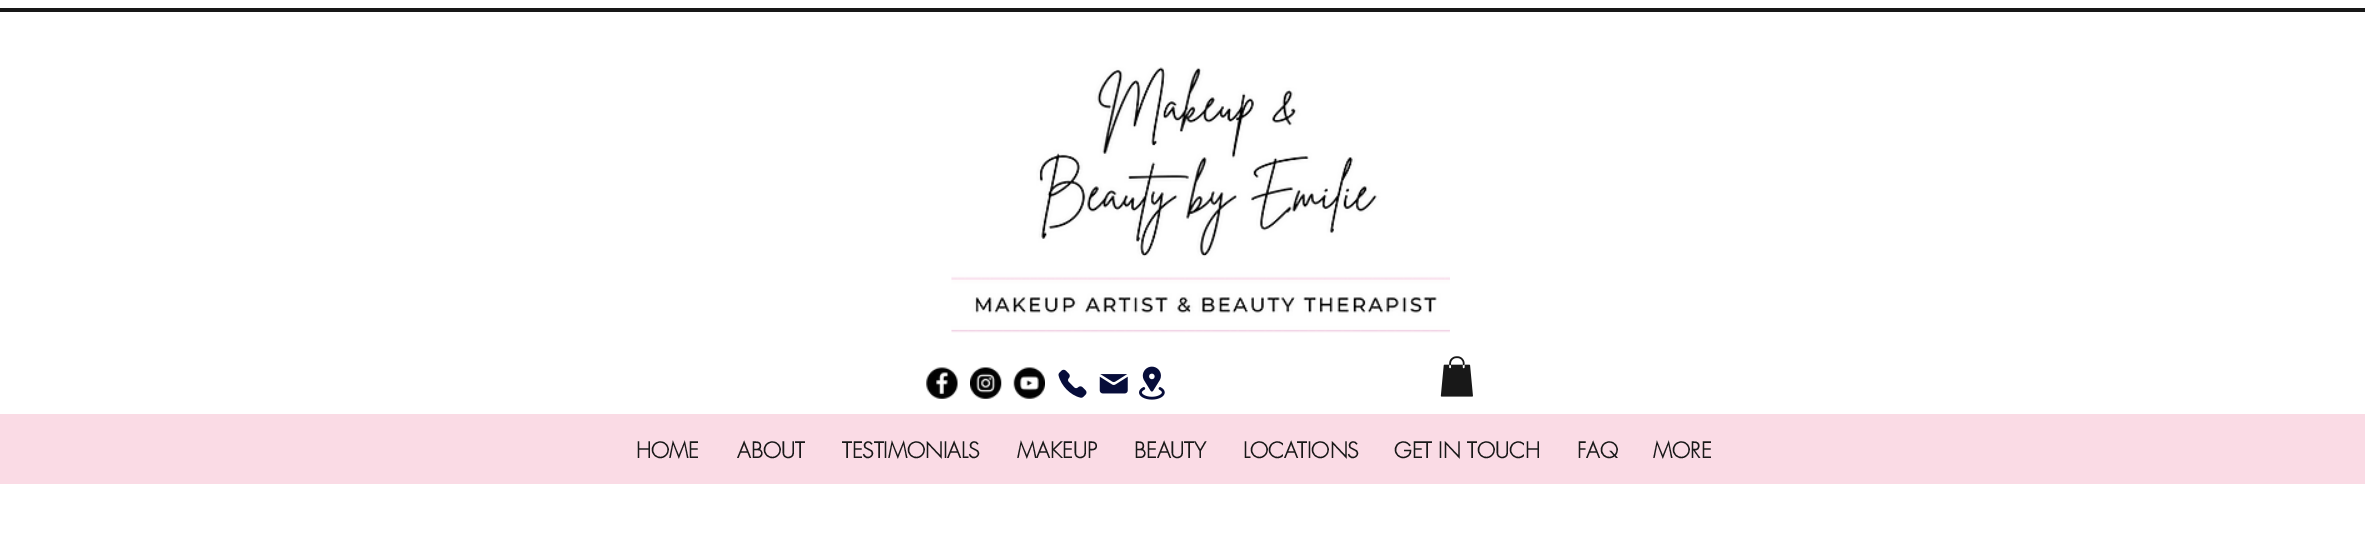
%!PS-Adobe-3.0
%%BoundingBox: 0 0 2365 551
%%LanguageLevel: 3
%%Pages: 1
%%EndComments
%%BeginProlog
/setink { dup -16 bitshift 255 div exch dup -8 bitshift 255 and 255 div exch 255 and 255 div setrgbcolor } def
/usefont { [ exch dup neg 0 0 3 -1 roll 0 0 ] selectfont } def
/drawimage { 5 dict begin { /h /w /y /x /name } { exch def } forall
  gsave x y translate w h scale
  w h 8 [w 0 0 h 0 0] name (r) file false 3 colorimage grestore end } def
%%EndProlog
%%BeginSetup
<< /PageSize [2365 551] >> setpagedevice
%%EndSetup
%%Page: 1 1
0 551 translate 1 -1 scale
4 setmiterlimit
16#FFFFFF setink
0 0 2365 551 rectfill
16#181818 setink
0 8 2365 4 rectfill
(img1.raw) 951 67 499 266 drawimage
(img2.raw) 926 367 32 32 drawimage
(img3.raw) 970 367 32 32 drawimage
(img4.raw) 1013 367 32 32 drawimage
(img5.raw) 1058 369 29 29 drawimage
(img6.raw) 1099 374 29 20 drawimage
(img7.raw) 1139 366 26 34 drawimage
(img8.raw) 1440 356 33 41 drawimage
16#FADBE5 setink
0 414 2365 70 rectfill
/futura-Bold 21.25 usefont
16#181818 setink
[
    [(HOME) 636 458]
    [(ABOUT) 737 458]
    [(TESTIMONIALS) 842 458]
    [(MAKEUP) 1017 458]
    [(BEAUTY) 1134 458]
    [(LOCATIONS) 1243 458]
    [(GET IN TOUCH) 1394 458]
    [(FAQ) 1577 458]
    [(MORE) 1653 458]
] { aload pop moveto show } forall
showpage
%%EOF
